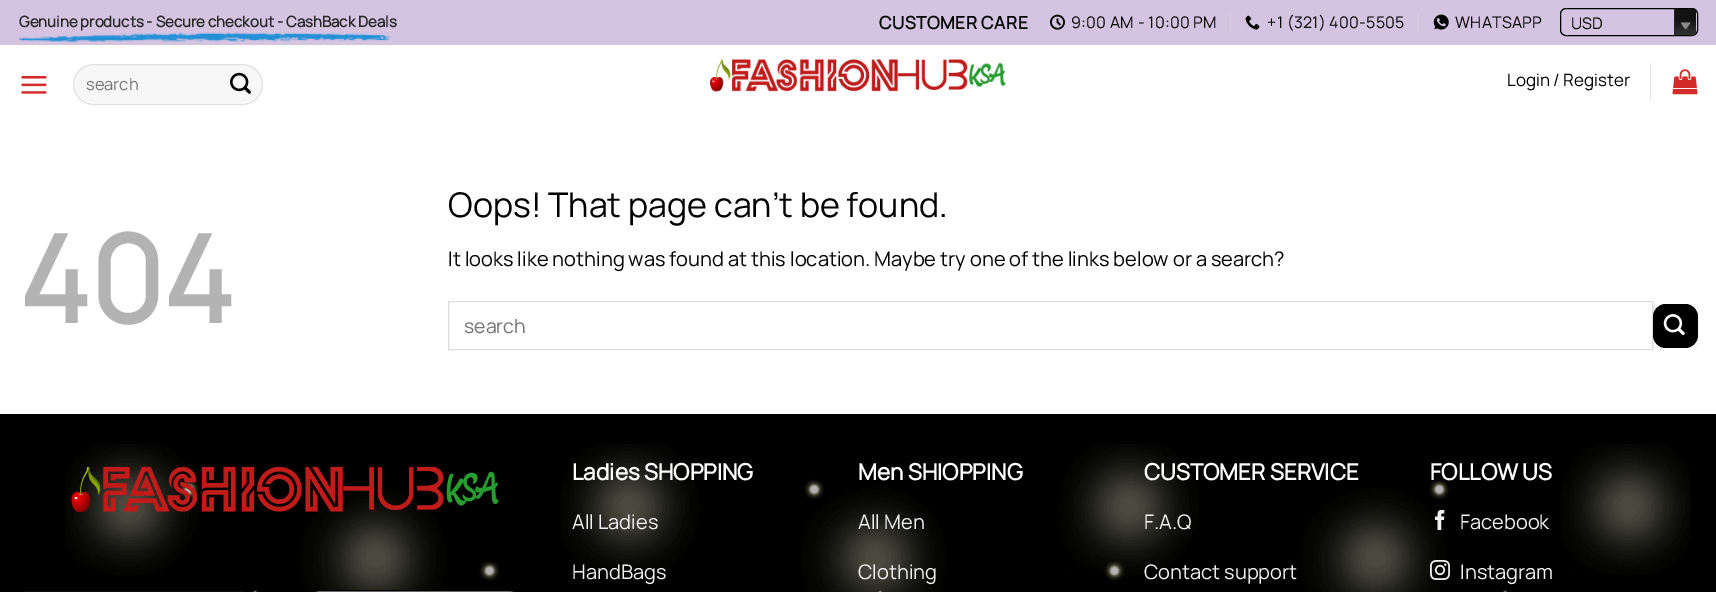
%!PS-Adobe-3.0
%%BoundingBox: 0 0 1716 592
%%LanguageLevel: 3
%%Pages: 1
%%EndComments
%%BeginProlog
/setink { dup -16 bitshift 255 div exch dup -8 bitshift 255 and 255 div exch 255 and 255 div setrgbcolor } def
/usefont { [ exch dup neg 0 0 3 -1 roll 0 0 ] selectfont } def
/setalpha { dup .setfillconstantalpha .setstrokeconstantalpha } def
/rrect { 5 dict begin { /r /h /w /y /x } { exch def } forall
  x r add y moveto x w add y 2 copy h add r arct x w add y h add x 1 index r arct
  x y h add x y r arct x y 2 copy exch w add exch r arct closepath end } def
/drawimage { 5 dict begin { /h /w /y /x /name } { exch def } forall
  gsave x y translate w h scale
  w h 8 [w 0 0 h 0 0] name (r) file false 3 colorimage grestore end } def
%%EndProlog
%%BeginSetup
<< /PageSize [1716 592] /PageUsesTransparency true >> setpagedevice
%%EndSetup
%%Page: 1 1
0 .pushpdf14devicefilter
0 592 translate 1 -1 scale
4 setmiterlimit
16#FFFFFF setink
0 0 1716 592 rectfill
16#D5C3E2 setink
0 0 1716 45 rectfill
/Manrope-Bold 15 usefont
16#282828 setink
19 27 moveto (Genuine products - Secure checkout - CashBack Deals) show
(img1.raw) 18 32 373 11 drawimage
/Manrope-Bold 17.5 usefont
16#000000 setink
879 29 moveto 0.5 0 (CUSTOMER CARE) ashow
(img2.raw) 1050 14 15 16 drawimage
/Manrope-ExtraLight 16 usefont
1071 28 moveto 0.3 0 (9:00 AM - 10:00 PM) ashow
16#DDCFE8 setink
1230 14 1 19 rectfill
(img3.raw) 1245 15 15 15 drawimage
16#000000 setink
1267 28 moveto 0.3 0 (+1 \(321\) 400-5505) ashow
16#DDCFE8 setink
1418 14 1 19 rectfill
(img4.raw) 1433 14 16 16 drawimage
16#000000 setink
1455 28 moveto 0.3 0 (WHATSAPP) ashow
1560.5 8.5 137 27 5.5 rrect stroke
1571 29 moveto (USD) show
gsave 1674 9 moveto 1691 9 lineto 1694 9 1696 11 1696 14 curveto 1696 30 lineto 1696 33 1694 35 1691 35 curveto 1674 35 lineto closepath clip newpath
<< /ShadingType 2 /ColorSpace /DeviceRGB /Coords [1675 35 1675 9] /Extend [true true] /Function << /FunctionType 3 /Domain [0 1] /Functions [<< /FunctionType 2 /Domain [0 1] /C0 [0.2 0.2 0.2] /C1 [0.071 0.071 0.071] /N 1 >> << /FunctionType 2 /Domain [0 1] /C0 [0.071 0.071 0.071] /C1 [0.071 0.071 0.071] /N 1 >>] /Bounds [0.6] /Encode [0 1 0 1] >> >> shfill grestore
16#252525 setink
1674 9 1 26 rectfill
(img5.raw) 1681 22 10 9 drawimage
(img6.raw) 21 76 26 18 drawimage
16#F7F7F7 setink
73 64 190 41 20.5 rrect fill
0.09 setalpha
16#000000 setink
73.5 64.5 189 40 20 rrect stroke
/Manrope-ExtraLight 16.5 usefont
1 setalpha
16#757575 setink
86 90 moveto (search) show
(img7.raw) 230 72 21 22 drawimage
(img8.raw) 710 59 296 33 drawimage
/Manrope-ExtraLight 17 usefont
16#000000 setink
1507 86 moveto (Login / Register) show
16#E6E6E6 setink
1650 63 1 37 rectfill
(img9.raw) 1672 69 26 26 drawimage
/Manrope-Bold 120 usefont
16#B3B3B3 setink
19 323 moveto (404) show
/Manrope-ExtraLight 34 usefont
16#000000 setink
448 217 moveto (Oops! That page can’t be found.) show
/Manrope-ExtraLight 20 usefont
448 266 moveto (It looks like nothing was found at this location. Maybe try one of the links below or a search?) show
16#DDDDDD setink
448.5 301.5 1204 48 rectstroke
/Manrope-ExtraLight 19.5 usefont
16#757575 setink
464 333 moveto (search) show
16#000000 setink
1653 304 45 44 13 rrect fill
0.05 setalpha
1653.5 304.5 44 43 rectstroke
1 setalpha
(img10.raw) 1663 314 22 21 drawimage
0 414 1716 178 rectfill
(img11.raw) 66 444 1625 148 drawimage
(img12.raw) 71 466 428 47 drawimage
(img13.raw) 23 591 221 1 drawimage
(img14.raw) 315 590 199 2 drawimage
/Manrope-Bold 22.5 usefont
16#FFFFFF setink
572 480 moveto (Ladies SHOPPING) show
/Manrope-ExtraLight 20 usefont
16#F1F1F1 setink
572 529 moveto (All Ladies) show
572 579 moveto (HandBags) show
/Manrope-Bold 22.5 usefont
16#FFFFFF setink
858 480 moveto (Men SHIOPPING) show
/Manrope-ExtraLight 20 usefont
16#F1F1F1 setink
858 529 moveto (All Men) show
858 579 moveto (Clothing) show
/Manrope-Bold 22.5 usefont
16#FFFFFF setink
1144 480 moveto (CUSTOMER SERVICE) show
/Manrope-ExtraLight 20 usefont
16#F1F1F1 setink
1144 529 moveto (F.A.Q) show
1144 579 moveto (Contact support) show
/Manrope-Bold 22.5 usefont
16#FFFFFF setink
1430 480 moveto (FOLLOW US) show
(img15.raw) 1435 510 10 20 drawimage
/Manrope-ExtraLight 20 usefont
16#F1F1F1 setink
1460 529 moveto (Facebook) show
(img16.raw) 1430 560 20 20 drawimage
1460 579 moveto (Instagram) show
.poppdf14devicefilter showpage
%%EOF
